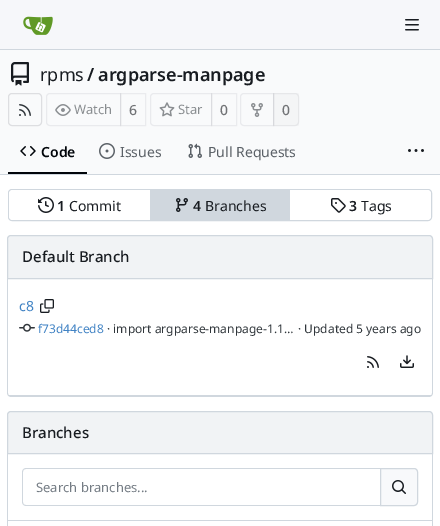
%!PS-Adobe-3.0
%%BoundingBox: 0 0 440 526
%%LanguageLevel: 3
%%Pages: 1
%%EndComments
%%BeginProlog
/setink { dup -16 bitshift 255 div exch dup -8 bitshift 255 and 255 div exch 255 and 255 div setrgbcolor } def
/usefont { [ exch dup neg 0 0 3 -1 roll 0 0 ] selectfont } def
/setalpha { dup .setfillconstantalpha .setstrokeconstantalpha } def
/rrect { 5 dict begin { /r /h /w /y /x } { exch def } forall
  x r add y moveto x w add y 2 copy h add r arct x w add y h add x 1 index r arct
  x y h add x y r arct x y 2 copy exch w add exch r arct closepath end } def
/drawimage { 5 dict begin { /h /w /y /x /name } { exch def } forall
  gsave x y translate w h scale
  w h 8 [w 0 0 h 0 0] name (r) file false 3 colorimage grestore end } def
%%EndProlog
%%BeginSetup
<< /PageSize [440 526] /PageUsesTransparency true >> setpagedevice
%%EndSetup
%%Page: 1 1
0 .pushpdf14devicefilter
0 526 translate 1 -1 scale
4 setmiterlimit
16#FFFFFF setink
0 0 440 526 rectfill
16#F6F7FA setink
0 0 440 49 rectfill
16#D0D7DE setink
0 49 440 1 rectfill
(img1.raw) 23 16 30 19 drawimage
(img2.raw) 405 19 14 12 drawimage
16#F9FAFB setink
0 50 440 124 rectfill
(img3.raw) 11 62 18 24 drawimage
/NotoSans-Regular 18 usefont
16#181C21 setink
40 81 moveto (rpms) show
/NotoSans-SemiBold 18 usefont
87 81 moveto (/) show
98 81 moveto (argparse-manpage) show
16#DDDEE1 setink
8.5 93.5 33 32 3.5 rrect stroke
(img4.raw) 19 104 12 12 drawimage
16#E9EAED setink
50 93.5 moveto 120.5 93.5 lineto 120.5 125.5 lineto 50 125.5 lineto 48 125.5 46.5 124 46.5 122 curveto 46.5 97 lineto 46.5 95 48 93.5 50 93.5 curveto closepath stroke
(img5.raw) 55 104 16 12 drawimage
/NotoSans-Regular 13 usefont
16#8A8E91 setink
74 114 moveto (Watch) show
0.06 setalpha
16#000017 setink
120.5 93.5 25 32 rectstroke
/NotoSans-Medium 14 usefont
1 setalpha
16#717376 setink
129 115 moveto (6) show
16#E9EAED setink
154 93.5 moveto 211.5 93.5 lineto 211.5 125.5 lineto 154 125.5 lineto 152 125.5 150.5 124 150.5 122 curveto 150.5 97 lineto 150.5 95 152 93.5 154 93.5 curveto closepath stroke
(img6.raw) 159 102 16 15 drawimage
/NotoSans-Regular 13 usefont
16#8A8E91 setink
178 114 moveto (Star) show
0.06 setalpha
16#000017 setink
211.5 93.5 25 32 rectstroke
/NotoSans-Medium 14 usefont
1 setalpha
16#717376 setink
220 115 moveto (0) show
16#E9EAED setink
244 93.5 moveto 273.5 93.5 lineto 273.5 125.5 lineto 244 125.5 lineto 242 125.5 240.5 124 240.5 122 curveto 240.5 97 lineto 240.5 95 242 93.5 244 93.5 curveto closepath stroke
(img7.raw) 251 103 12 14 drawimage
0.04 setalpha
16#707171 setink
273 93 26 33 rectfill
0.11 setalpha
16#70717E setink
273.5 93.5 moveto 295 93.5 lineto 297 93.5 298.5 95 298.5 97 curveto 298.5 122 lineto 298.5 124 297 125.5 295 125.5 curveto 273.5 125.5 lineto closepath stroke
1 setalpha
16#717376 setink
282 115 moveto (0) show
16#01050A setink
8 172 79 2 rectfill
(img8.raw) 20 146 16 10 drawimage
/NotoSans-SemiBold 14 usefont
41 157 moveto (Code) show
(img9.raw) 99 143 16 16 drawimage
/NotoSans-Regular 14 usefont
16#5B6167 setink
120 157 moveto (Issues) show
(img10.raw) 188 143 14 15 drawimage
208 157 moveto (Pull Requests) show
(img11.raw) 408 149 16 3 drawimage
16#D0D7DE setink
0 174 440 1 rectfill
8.5 189.5 423 31 3.5 rrect stroke
16#FFFFFF setink
9 190 422 30 4 rrect fill
(img12.raw) 38 197 16 16 drawimage
/NotoSans-SemiBold 14 usefont
16#181C21 setink
57 211 moveto (1) show
/NotoSans-Regular 14 usefont
69 211 moveto (Commit) show
16#D0D7DE setink
150 190 140 30 rectfill
(img13.raw) 176 198 12 14 drawimage
/NotoSans-SemiBold 14 usefont
16#181C21 setink
193 211 moveto (4) show
/NotoSans-Regular 14 usefont
205 211 moveto (Branches) show
(img14.raw) 331 198 15 15 drawimage
/NotoSans-SemiBold 14 usefont
349 211 moveto (3) show
/NotoSans-Regular 14 usefont
361 211 moveto (Tags) show
16#F1F3F5 setink
11 235.5 moveto 429 235.5 lineto 431 235.5 432.5 237 432.5 239 curveto 432.5 278.5 lineto 7.5 278.5 lineto 7.5 239 lineto 7.5 237 9 235.5 11 235.5 curveto closepath gsave fill grestore
16#D0D7DE setink
stroke
/NotoSans-Medium 15 usefont
16#181C21 setink
22 262 moveto (Default Branch) show
16#D0D7DE setink
7 279 moveto 433 279 lineto 433 393 lineto 433 395 431 397 429 397 curveto 11 397 lineto 9 397 7 395 7 393 curveto closepath 8 279 moveto 432 279 lineto 432 393 lineto 432 395 431 396 429 396 curveto 11 396 lineto 9 396 8 395 8 393 curveto closepath eofill
8 395 424 1 rectfill
/NotoSans-Regular 14 usefont
16#4183C4 setink
19 311 moveto (c8) show
(img15.raw) 40 299 14 14 drawimage
(img16.raw) 19 323 16 9 drawimage
/NotoSans-Regular 12 usefont
38 333 moveto (f73d44ced8) show
16#30363B setink
107 333 moveto (· import argparse-manpage-1.1…) show
298 333 moveto (· Updated 5 years ago) show
(img17.raw) 367 356 12 12 drawimage
(img18.raw) 400 355 14 13 drawimage
16#F1F3F5 setink
11 411.5 moveto 429 411.5 lineto 431 411.5 432.5 413 432.5 415 curveto 432.5 453.5 lineto 7.5 453.5 lineto 7.5 415 lineto 7.5 413 9 411.5 11 411.5 curveto closepath gsave fill grestore
16#D0D7DE setink
stroke
/NotoSans-Medium 15 usefont
16#181C21 setink
22 438 moveto (Branches) show
[
    [432 454 1 67 16#D0D7DE]
    [7 520 426 1 16#D0D7DE]
    [7 454 1 67 16#D0D7DE]
] { aload pop setink rectfill } forall
26 468 moveto 380 468 lineto 380 506 lineto 26 506 lineto 24 506 22 504 22 502 curveto 22 472 lineto 22 470 24 468 26 468 curveto closepath 26 469 moveto 380 469 lineto 380 505 lineto 26 505 lineto 24 505 23 504 23 502 curveto 23 472 lineto 23 470 24 469 26 469 curveto closepath eofill
/NotoSans-Regular 13 usefont
16#747C84 setink
36 492 moveto (Search branches...) show
16#F8F9FB setink
380.5 468.5 moveto 414 468.5 lineto 416 468.5 417.5 470 417.5 472 curveto 417.5 502 lineto 417.5 504 416 505.5 414 505.5 curveto 380.5 505.5 lineto closepath gsave fill grestore
16#D0D7DE setink
stroke
(img19.raw) 392 480 14 14 drawimage
7 521 moveto 433 521 lineto 433 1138 lineto 433 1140 431 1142 429 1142 curveto 11 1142 lineto 9 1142 7 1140 7 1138 curveto closepath 8 521 moveto 432 521 lineto 432 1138 lineto 432 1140 431 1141 429 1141 curveto 11 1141 lineto 9 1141 8 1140 8 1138 curveto closepath eofill
.poppdf14devicefilter showpage
%%EOF
